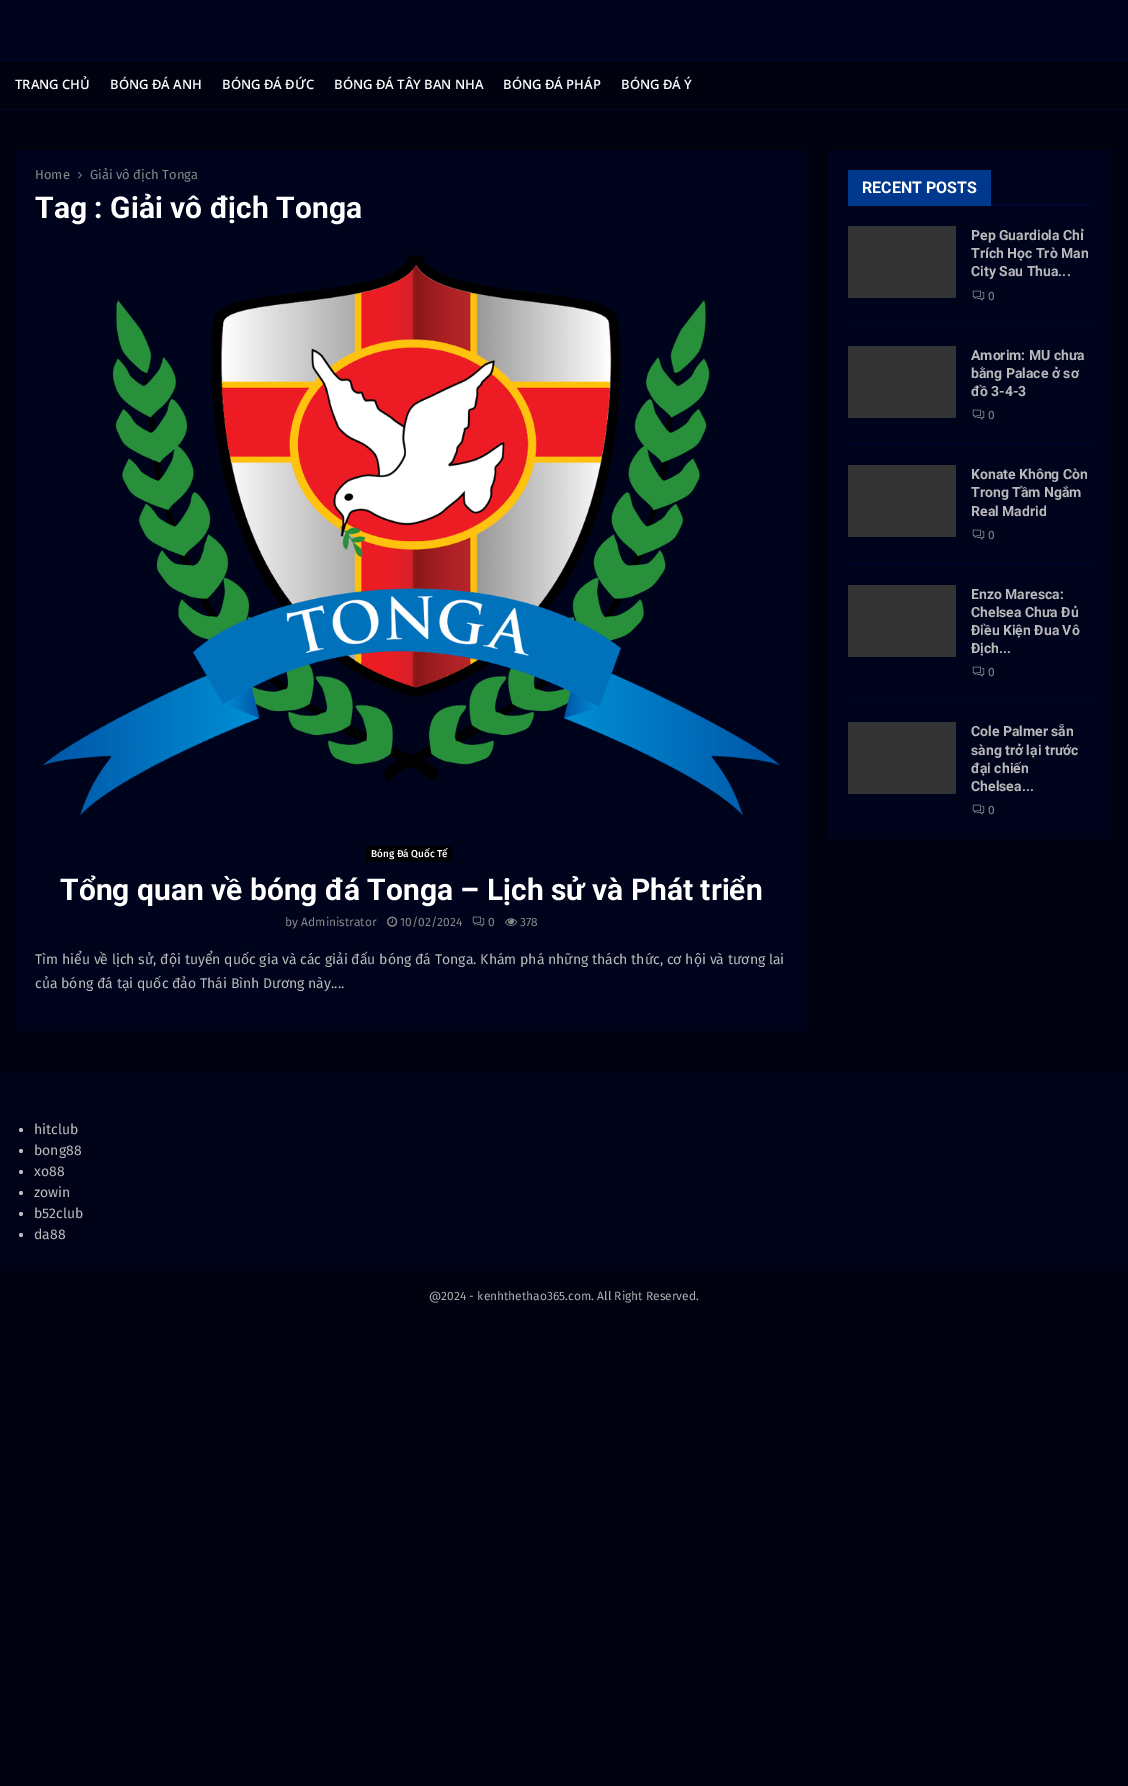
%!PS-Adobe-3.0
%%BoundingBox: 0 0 1128 1786
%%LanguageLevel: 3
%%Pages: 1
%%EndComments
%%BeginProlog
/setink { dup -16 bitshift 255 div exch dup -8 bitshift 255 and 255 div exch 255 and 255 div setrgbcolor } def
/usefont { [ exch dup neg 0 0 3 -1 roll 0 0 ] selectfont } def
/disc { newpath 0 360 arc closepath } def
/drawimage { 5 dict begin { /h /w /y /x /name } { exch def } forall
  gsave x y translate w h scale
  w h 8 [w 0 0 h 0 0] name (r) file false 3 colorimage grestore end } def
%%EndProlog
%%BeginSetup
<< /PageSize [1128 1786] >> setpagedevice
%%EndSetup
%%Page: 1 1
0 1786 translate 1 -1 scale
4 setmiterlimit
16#000210 setink
0 0 1128 1786 rectfill
[
    [0 0 1128 60 16#00031C]
    [0 109 1128 1 16#000630]
    [0 60 1128 1 16#000630]
] { aload pop setink rectfill } forall
/OpenSans-SemiBold 13 usefont
16#FFFFFF setink
[
    [(TRANG CHỦ) 15 89]
    [(BÓNG ĐÁ ANH) 110 89]
    [(BÓNG ĐÁ ĐỨC) 222 89]
    [(BÓNG ĐÁ TÂY BAN NHA) 334 89]
    [(BÓNG ĐÁ PHÁP) 503 89]
    [(BÓNG ĐÁ Ý) 621 89]
] { aload pop moveto show } forall
16#00031C setink
15 150 793 881 rectfill
/FiraSans-Regular 13 usefont
16#888888 setink
35 179 moveto (Home) show
(img1.raw) 78 171 4 8 drawimage
90 179 moveto (Giải vô địch Tonga) show
/Roboto-Bold 30 usefont
16#FFFFFF setink
35 218 moveto (Tag : Giải vô địch Tonga) show
(img2.raw) 42 255 738 560 drawimage
16#000000 setink
366 846 86 16 rectfill
/FiraSans-Medium 10 usefont
16#FFFFFF setink
371 857 moveto (Bóng Đá Quốc Tế) show
/Roboto-Bold 30 usefont
60 900 moveto (Tổng quan về bóng đá Tonga – Lịch sử và Phát triển) show
/FiraSans-Regular 12 usefont
16#888888 setink
285 926 moveto (by Administrator) show
(img3.raw) 387 916 11 11 drawimage
400 926 moveto (10/02/2024) show
(img4.raw) 472 916 13 11 drawimage
488 926 moveto (0) show
(img5.raw) 505 918 12 8 drawimage
520 926 moveto (378) show
/FiraSans-Regular 14 usefont
16#BABABA setink
35 964 moveto (Tìm hiểu về lịch sử, đội tuyển quốc gia và các giải đấu bóng đá Tonga. Khám phá những thách thức, cơ hội và tương lai) show
35 988 moveto (của bóng đá tại quốc đảo Thái Bình Dương này....) show
[
    [828 150 285 689 16#00031C]
    [991 204 102 2 16#000630]
    [848 170 143 36 16#00388D]
] { aload pop setink rectfill } forall
/Roboto-Bold 16 usefont
16#FFFFFF setink
862 193 moveto (RECENT POSTS) show
16#000630 setink
848 325 245 1 rectfill
16#333333 setink
848 226 108 72 rectfill
/Roboto-Bold 14 usefont
16#BABABA setink
[
    [(Pep Guardiola Chỉ) 971 240]
    [(Trích Học Trò Man) 971 258]
    [(City Sau Thua...) 971 276]
] { aload pop moveto show } forall
(img4.raw) 972 290 13 11 drawimage
/FiraSans-Regular 12 usefont
16#888888 setink
988 300 moveto (0) show
16#000630 setink
848 444 245 1 rectfill
16#333333 setink
848 346 108 72 rectfill
/Roboto-Bold 14 usefont
16#BABABA setink
[
    [(Amorim: MU chưa) 971 360]
    [(bằng Palace ở sơ) 971 378]
    [(đồ 3-4-3) 971 396]
] { aload pop moveto show } forall
(img4.raw) 972 409 13 11 drawimage
/FiraSans-Regular 12 usefont
16#888888 setink
988 419 moveto (0) show
16#000630 setink
848 564 245 1 rectfill
16#333333 setink
848 465 108 72 rectfill
/Roboto-Bold 14 usefont
16#BABABA setink
[
    [(Konate Không Còn) 971 479]
    [(Trong Tầm Ngắm) 971 497]
    [(Real Madrid) 971 516]
] { aload pop moveto show } forall
(img4.raw) 972 529 13 11 drawimage
/FiraSans-Regular 12 usefont
16#888888 setink
988 539 moveto (0) show
16#000630 setink
848 701 245 1 rectfill
16#333333 setink
848 585 108 72 rectfill
/Roboto-Bold 14 usefont
16#BABABA setink
[
    [(Enzo Maresca:) 971 599]
    [(Chelsea Chưa Đủ) 971 617]
    [(Điều Kiện Đua Vô) 971 635]
    [(Địch...) 971 653]
] { aload pop moveto show } forall
(img4.raw) 972 666 13 11 drawimage
/FiraSans-Regular 12 usefont
16#888888 setink
988 676 moveto (0) show
16#333333 setink
848 722 108 72 rectfill
/Roboto-Bold 14 usefont
16#BABABA setink
[
    [(Cole Palmer sẵn) 971 736]
    [(sàng trở lại trước) 971 755]
    [(đại chiến) 971 773]
    [(Chelsea...) 971 791]
] { aload pop moveto show } forall
(img4.raw) 972 804 13 11 drawimage
/FiraSans-Regular 12 usefont
16#888888 setink
988 814 moveto (0) show
16#000318 setink
0 1071 1128 200 rectfill
16#BABABA setink
21 1130 2 disc fill
/FiraSans-Regular 14 usefont
34 1134 moveto (hitclub) show
21 1151 2 disc fill
34 1155 moveto (bong88) show
21 1172 2 disc fill
34 1176 moveto (xo88) show
21 1193 2 disc fill
34 1197 moveto (zowin) show
21 1214 2 disc fill
34 1218 moveto (b52club) show
21 1235 2 disc fill
34 1239 moveto (da88) show
/FiraSans-Regular 12 usefont
16#AFAFAF setink
429 1300 moveto (@2024 - kenhthethao365.com. All Right Reserved.) show
showpage
%%EOF
